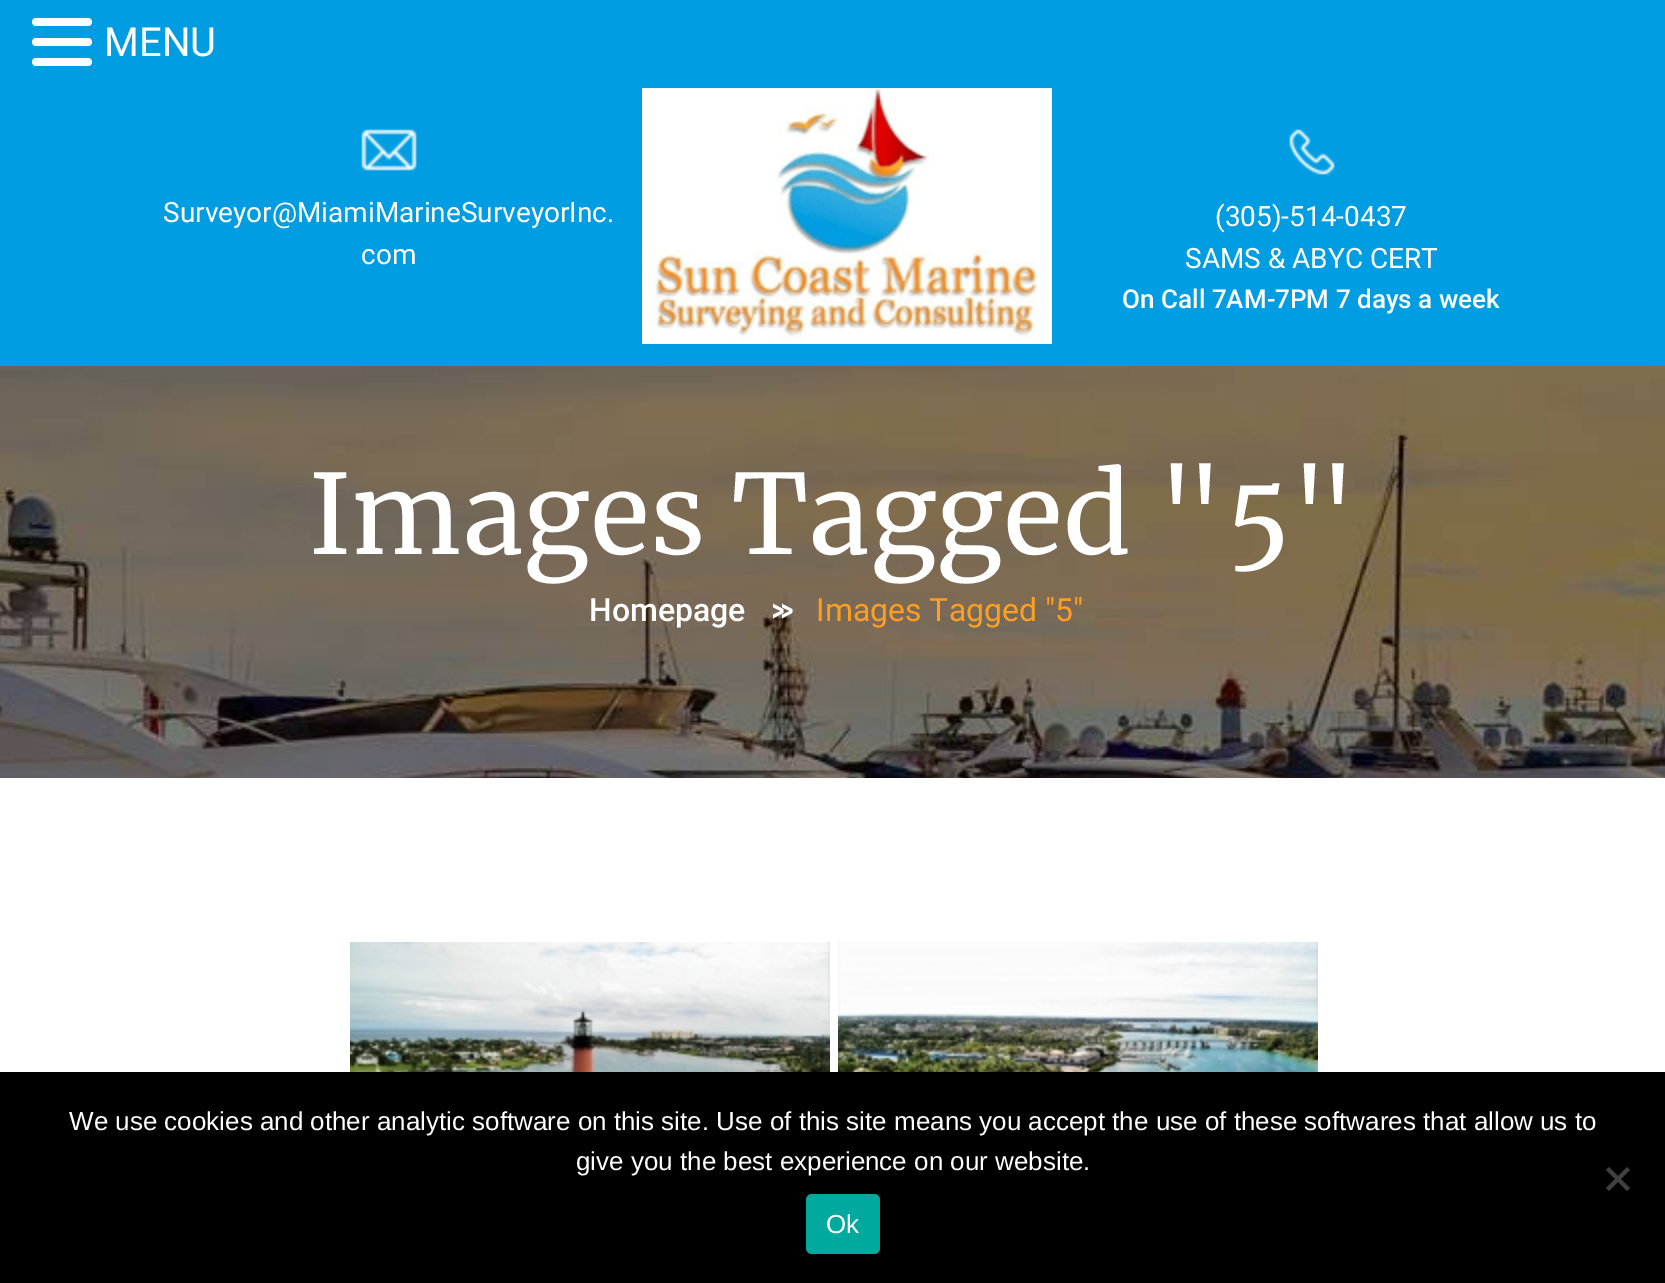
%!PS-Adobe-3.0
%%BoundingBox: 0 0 1665 1283
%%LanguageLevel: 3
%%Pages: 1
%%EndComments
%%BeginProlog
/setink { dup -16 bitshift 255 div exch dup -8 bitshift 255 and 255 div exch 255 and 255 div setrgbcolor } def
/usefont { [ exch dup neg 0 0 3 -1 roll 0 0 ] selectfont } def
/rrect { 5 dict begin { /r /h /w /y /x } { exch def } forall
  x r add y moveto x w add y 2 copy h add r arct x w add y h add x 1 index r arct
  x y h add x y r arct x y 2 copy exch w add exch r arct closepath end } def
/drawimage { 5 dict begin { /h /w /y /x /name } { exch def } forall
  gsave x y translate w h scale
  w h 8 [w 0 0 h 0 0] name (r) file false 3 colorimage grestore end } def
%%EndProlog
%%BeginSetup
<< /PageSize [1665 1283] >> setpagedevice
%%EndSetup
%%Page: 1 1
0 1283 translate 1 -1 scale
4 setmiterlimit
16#FFFFFF setink
0 0 1665 1283 rectfill
16#019DE2 setink
0 0 1665 366 rectfill
16#FFFFFF setink
32 18 60 8 4 rrect fill
32 38 60 8 4 rrect fill
32 58 60 8 4 rrect fill
/Roboto-Regular 40 usefont
104 56 moveto (MENU) show
(img1.raw) 361 129 56 42 drawimage
/Roboto-Regular 28 usefont
163 222 moveto (Surveyor@MiamiMarineSurveyorInc.) show
361 264 moveto (com) show
(img2.raw) 642 88 410 256 drawimage
(img3.raw) 1289 129 46 46 drawimage
1215 226 moveto (\(305\)-514-0437) show
1185 268 moveto (SAMS & ABYC CERT) show
/Roboto-Medium 26 usefont
1122 308 moveto (On Call 7AM-7PM 7 days a week) show
(img4.raw) 0 366 1665 412 drawimage
/Merriweather-Regular 110 usefont
308 554 moveto (Images Tagged "5") show
/Roboto-Medium 32 usefont
589 621 moveto (Homepage) show
/Oswald-Regular 36 usefont
771 626 moveto -4 0 (>>) ashow
/Roboto-Regular 32 usefont
16#FE9F23 setink
816 621 moveto (Images Tagged "5") show
(img5.raw) 350 942 480 130 drawimage
(img6.raw) 838 942 480 130 drawimage
16#000000 setink
0 1072 1665 211 rectfill
/LiberationSans-Regular 26 usefont
16#FFFFFF setink
69 1130 moveto (We use cookies and other analytic software on this site. Use of this site means you accept the use of these softwares that allow us to) show
576 1170 moveto (give you the best experience on our website.) show
16#404040 setink
1627 1167 moveto 1630 1170 lineto 1609 1191 lineto 1606 1188 lineto closepath fill
1606 1170 moveto 1609 1167 lineto 1630 1188 lineto 1627 1191 lineto closepath fill
16#00A99D setink
806 1194 74 60 6 rrect fill
16#FFFFFF setink
826 1233 moveto (Ok) show
showpage
%%EOF
